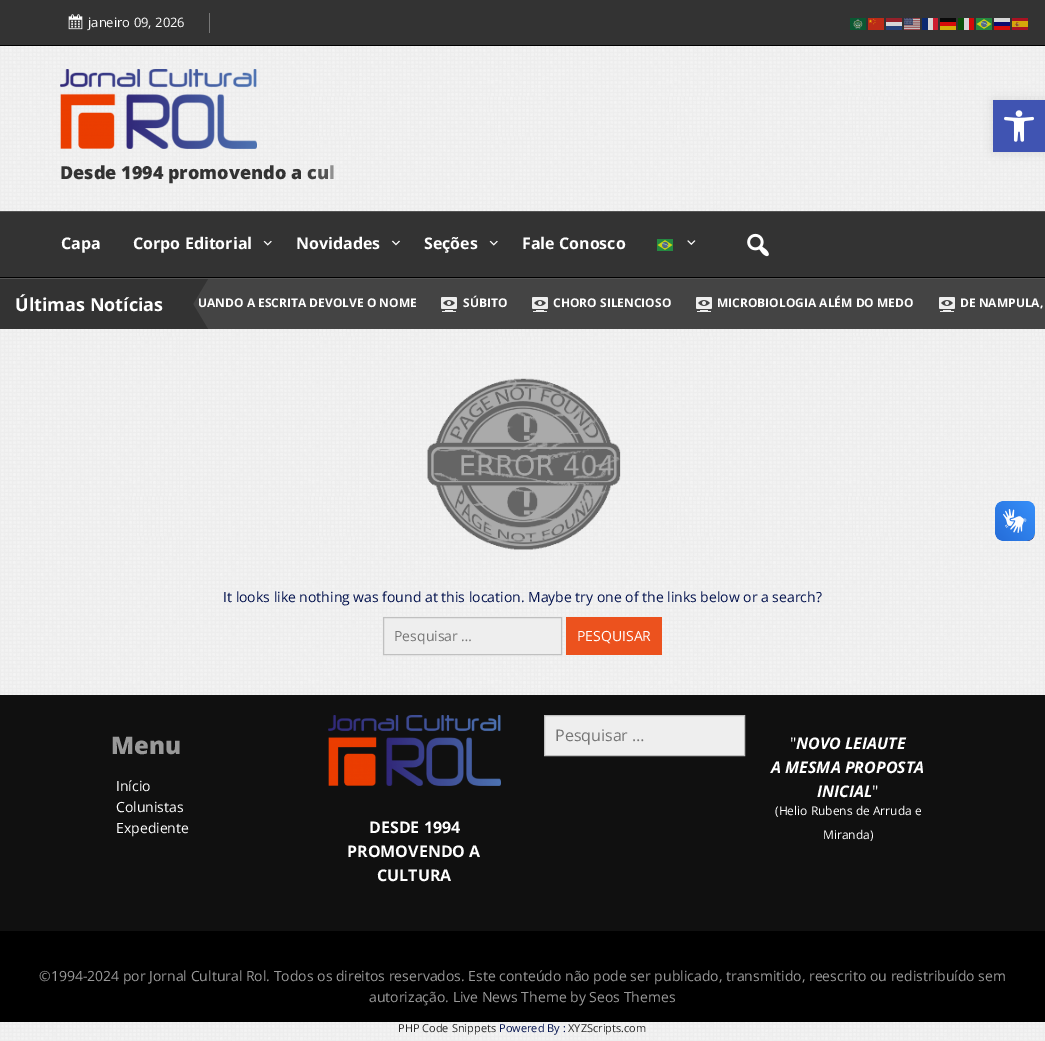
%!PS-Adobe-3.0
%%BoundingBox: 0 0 1045 1041
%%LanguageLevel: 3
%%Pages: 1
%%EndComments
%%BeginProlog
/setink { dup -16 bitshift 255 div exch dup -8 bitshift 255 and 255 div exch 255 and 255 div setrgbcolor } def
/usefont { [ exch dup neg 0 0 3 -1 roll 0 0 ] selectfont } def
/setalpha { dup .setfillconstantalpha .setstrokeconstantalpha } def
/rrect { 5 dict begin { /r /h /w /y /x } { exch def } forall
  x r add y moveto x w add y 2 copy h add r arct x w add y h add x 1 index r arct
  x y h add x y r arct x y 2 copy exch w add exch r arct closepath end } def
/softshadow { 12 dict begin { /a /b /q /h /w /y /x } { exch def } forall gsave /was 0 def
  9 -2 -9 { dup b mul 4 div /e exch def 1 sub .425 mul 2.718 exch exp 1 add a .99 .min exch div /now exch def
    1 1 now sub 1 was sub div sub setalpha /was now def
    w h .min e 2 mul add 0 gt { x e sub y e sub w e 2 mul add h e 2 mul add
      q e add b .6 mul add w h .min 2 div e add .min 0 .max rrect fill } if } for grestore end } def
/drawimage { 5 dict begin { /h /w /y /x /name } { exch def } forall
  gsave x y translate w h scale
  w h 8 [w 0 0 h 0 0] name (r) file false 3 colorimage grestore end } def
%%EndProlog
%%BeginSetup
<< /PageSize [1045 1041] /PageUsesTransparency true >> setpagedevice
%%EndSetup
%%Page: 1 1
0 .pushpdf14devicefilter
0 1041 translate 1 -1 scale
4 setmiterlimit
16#FFFFFF setink
0 0 1045 1041 rectfill
(img1.raw) 0 46 1045 995 drawimage
16#333333 setink
0 0 1045 45 rectfill
16#000000 setink
0 45 1045 1 rectfill
(img2.raw) 68 14 15 16 drawimage
/OpenSans-Regular 13 usefont
16#FFFFFF setink
88 27 moveto (janeiro 09, 2026) show
16#777777 setink
209 13 1 20 rectfill
(img3.raw) 850 18 16 12 drawimage
(img4.raw) 868 18 16 12 drawimage
16#95212A setink
886 18 16 4 rectfill
(img5.raw) 904 18 16 12 drawimage
[
    [922 18 6 12 16#0A2970]
    [928 18 5 12 16#D6D6D6]
    [933 18 5 12 16#CD1D31]
    [940 18 16 4 16#0A0A0A]
    [958 18 6 12 16#0A500A]
    [964 18 5 12 16#D6D6D6]
    [969 18 5 12 16#D40A0A]
] { aload pop setink rectfill } forall
(img6.raw) 976 18 16 12 drawimage
16#D6D6D6 setink
994 18 16 4 rectfill
(img7.raw) 1012 18 16 12 drawimage
[
    [886 22 16 4 16#D6D6D6]
    [940 22 16 4 16#D60A0A]
    [994 22 16 4 16#0B0B6F]
    [886 26 16 4 16#254279]
    [940 26 16 4 16#D6AD0A]
    [994 26 16 4 16#D50B0B]
] { aload pop setink rectfill } forall
16#000000 setink
993 100 52 52 0 5 0.1 softshadow
16#4054B2 setink
993 100 52 52 rectfill
(img8.raw) 1004 110 30 32 drawimage
(img9.raw) 60 69 197 80 drawimage
/OpenSans-ExtraBold 18 usefont
16#333333 setink
[
    [(Desde 1994 promovend) 60 179]
    [(o) 275 179]
    [(a) 291 179]
] { aload pop moveto show } forall
16#3F3F3F setink
307 179 moveto (c) show
16#545454 setink
317 179 moveto (u) show
16#8E8E8E setink
329 179 moveto (l) show
[
    [0 212 1045 65 16#333333]
    [0 211 1045 1 16#555555]
    [0 277 1045 1 16#000000]
] { aload pop setink rectfill } forall
/OpenSans-Bold 16 usefont
16#FFFFFF setink
61 249 moveto (Capa) show
133 249 moveto (Corpo Editorial) show
(img10.raw) 263 240 9 6 drawimage
296 249 moveto (Novidades) show
(img11.raw) 391 240 9 6 drawimage
424 249 moveto (Seções) show
(img12.raw) 489 240 9 6 drawimage
522 249 moveto (Fale Conosco) show
(img6.raw) 657 239 16 12 drawimage
(img13.raw) 687 240 9 5 drawimage
(img14.raw) 747 233 22 24 drawimage
[
    [193 279 852 50 16#444444]
    [0 278 1045 1 16#555555]
    [0 279 178 50 16#333333]
] { aload pop setink rectfill } forall
/OpenSans-Bold 12 usefont
16#FFFFFF setink
198 307 moveto (UANDO A ESCRITA DEVOLVE O NOME) show
16#333333 setink
178 329 moveto 178 279 lineto 208 279 lineto closepath fill
/OpenSans-Bold 18 usefont
16#FFFFFF setink
15 311 moveto (Últimas Notícias) show
16#333333 setink
178 329 moveto 178 279 lineto 208 329 lineto closepath fill
(img15.raw) 441 297 16 15 drawimage
/OpenSans-Bold 12 usefont
16#FFFFFF setink
463 307 moveto (SÚBITO) show
(img15.raw) 532 297 16 15 drawimage
553 307 moveto (CHORO SILENCIOSO) show
(img15.raw) 696 297 16 15 drawimage
717 307 moveto (MICROBIOLOGIA ALÉM DO MEDO) show
(img15.raw) 939 297 16 15 drawimage
960 307 moveto (DE NAMPULA,) show
(img16.raw) 995 501 40 40 drawimage
(img17.raw) 995 501 40 40 drawimage
(img18.raw) 427 378 194 172 drawimage
/OpenSans-Regular 14 usefont
16#04134E setink
223 602 moveto (It looks like nothing was found at this location. Maybe try one of the links below or a search?) show
16#EEEEEE setink
383.5 617.5 moveto 561.5 617.5 lineto 561.5 654.5 lineto 383.5 654.5 lineto closepath gsave fill grestore
16#C0C0C0 setink
stroke
16#757575 setink
394 641 moveto (Pesquisar …) show
16#EC521E setink
566 617 96 38 rectfill
16#FFFFFF setink
577 641 moveto (PESQUISAR) show
16#101010 setink
0 695 1045 236 rectfill
/OpenSans-ExtraBold 24 usefont
16#999999 setink
111 754 moveto (Menu) show
/OpenSans-Regular 14 usefont
16#FFFFFF setink
[
    [(Início) 116 791]
    [(Colunistas) 116 812]
    [(Expediente) 116 833]
] { aload pop moveto show } forall
16#EEEEEE setink
544.5 715.5 moveto 744.5 715.5 lineto 744.5 755.5 lineto 544.5 755.5 lineto closepath gsave fill grestore
16#C0C0C0 setink
stroke
/OpenSans-Regular 16 usefont
16#757575 setink
555 741 moveto (Pesquisar …) show
16#FFFFFF setink
790 749 moveto (") show
/OpenSans-BoldItalic 16 usefont
[
    [(NOVO LEIAUTE) 796 749]
    [(A MESMA PROPOSTA) 771 773]
    [(INICIAL) 817 797]
] { aload pop moveto show } forall
/OpenSans-Regular 16 usefont
872 797 moveto (") show
/OpenSans-Regular 12 usefont
775 815 moveto (\(Helio Rubens de Arruda e) show
823 839 moveto (Miranda\)) show
(img19.raw) 328 715 173 71 drawimage
/OpenSans-Bold 16 usefont
[
    [(DESDE 1994) 369 833]
    [(PROMOVENDO A) 347 857]
    [(CULTURA) 377 881]
] { aload pop moveto show } forall
16#000000 setink
0 931 1045 91 rectfill
/OpenSans-Regular 14 usefont
16#999999 setink
39 981 moveto (©1994-2024 por Jornal Cultural Rol. Todos os direitos reservados. Este conteúdo não pode ser publicado, transmitido, reescrito ou redistribuído sem) show
369 1002 moveto (autorização. Live News Theme by Seos Themes) show
/OpenSans-Regular 11 usefont
16#282828 setink
398 1032 moveto (PHP Code Snippets) show
16#04134E setink
499 1032 moveto (Powered By :) show
16#282828 setink
568 1032 moveto (XYZScripts.com) show
.poppdf14devicefilter showpage
%%EOF
